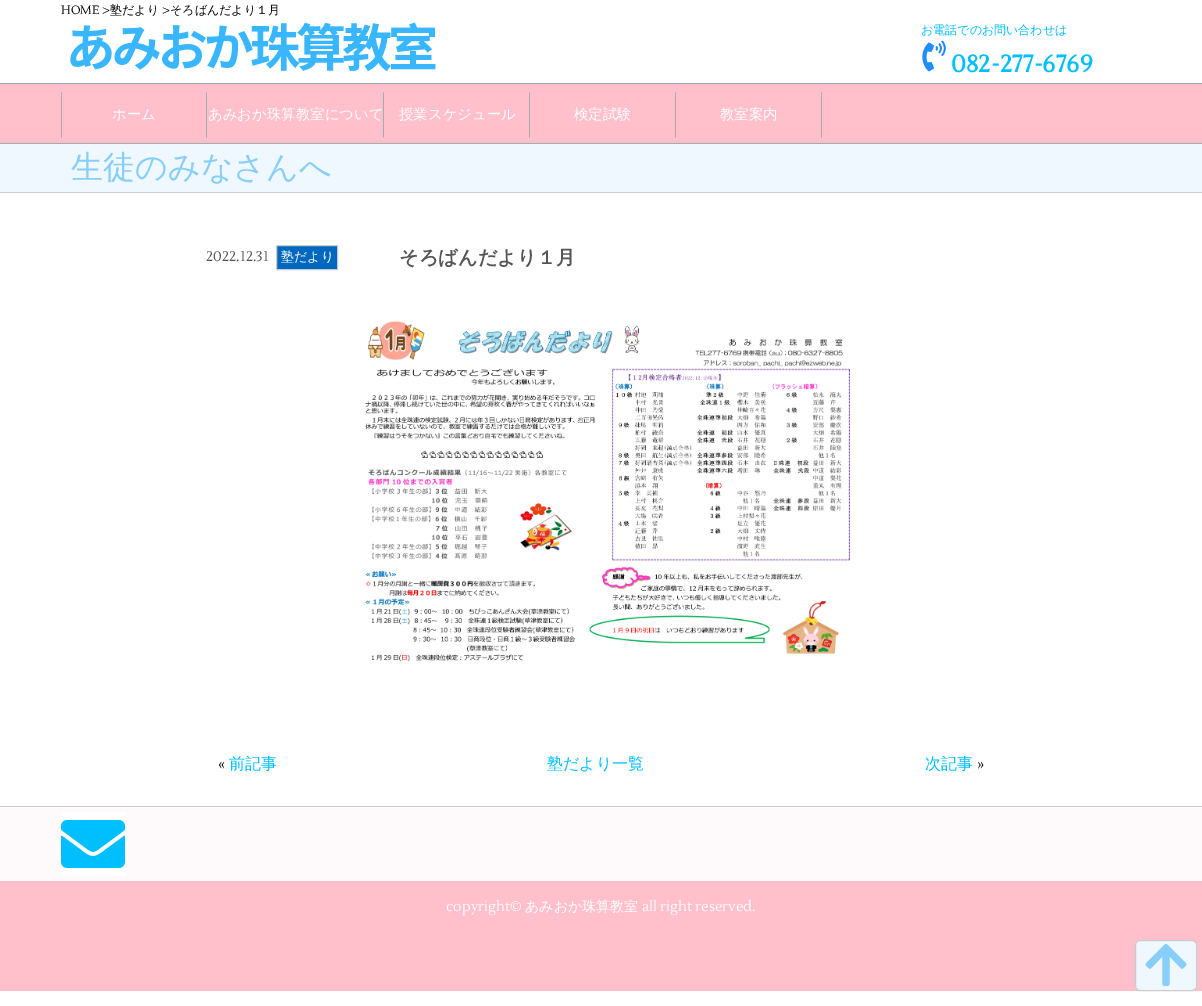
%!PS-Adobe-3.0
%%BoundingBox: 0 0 1202 1006
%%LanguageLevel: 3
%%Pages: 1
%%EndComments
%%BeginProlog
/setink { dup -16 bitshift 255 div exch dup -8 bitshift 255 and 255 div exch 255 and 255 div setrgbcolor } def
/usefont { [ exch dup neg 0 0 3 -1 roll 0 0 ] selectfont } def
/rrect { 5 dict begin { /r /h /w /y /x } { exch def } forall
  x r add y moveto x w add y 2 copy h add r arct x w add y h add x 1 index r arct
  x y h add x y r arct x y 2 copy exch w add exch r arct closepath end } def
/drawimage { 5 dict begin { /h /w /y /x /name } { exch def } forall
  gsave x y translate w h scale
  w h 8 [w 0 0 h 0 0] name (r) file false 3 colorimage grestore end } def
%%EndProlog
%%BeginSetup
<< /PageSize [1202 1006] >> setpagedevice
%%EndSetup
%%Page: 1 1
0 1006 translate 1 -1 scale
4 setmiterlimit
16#FFFFFF setink
0 0 1202 1006 rectfill
/Lustria-Regular 12 usefont
16#000000 setink
61 14 moveto (HOME >) show
/WenQuanYiZenHei-Medium 12 usefont
110 14 moveto (塾だより) show
/Lustria-Regular 12 usefont
162 14 moveto (>) show
/WenQuanYiZenHei-Medium 12 usefont
170 14 moveto (そろばんだより１月) show
(img1.raw) 70 22 366 50 drawimage
16#00BFFF setink
921 34 moveto (お電話でのお問い合わせは) show
(img2.raw) 922 40 24 32 drawimage
/Lustria-Bold 24 usefont
951 72 moveto (082-277-6769) show
[
    [0 84 1202 59 16#FFC0CB]
    [0 83 1202 1 16#AAAAAA]
    [0 143 1202 1 16#AAAAAA]
] { aload pop setink rectfill } forall
207 92 moveto 207 138 lineto 206 137 lineto 206 93 lineto closepath fill
61 138 moveto 61 92 lineto 62 93 lineto 62 137 lineto closepath fill
/WenQuanYiZenHei-Medium 14.4 usefont
16#FFFFFF setink
112 119 moveto (ホーム) show
16#AAAAAA setink
384 92 moveto 384 138 lineto 383 137 lineto 383 93 lineto closepath fill
16#FFFFFF setink
208 119 moveto (あみおか珠算教室について) show
16#AAAAAA setink
530 92 moveto 530 138 lineto 529 137 lineto 529 93 lineto closepath fill
16#FFFFFF setink
399 119 moveto (授業スケジュール) show
16#AAAAAA setink
676 92 moveto 676 138 lineto 675 137 lineto 675 93 lineto closepath fill
16#FFFFFF setink
574 119 moveto (検定試験) show
16#AAAAAA setink
822 92 moveto 822 138 lineto 821 137 lineto 821 93 lineto closepath fill
16#FFFFFF setink
720 119 moveto (教室案内) show
16#F0F8FF setink
0 144 1202 48 rectfill
16#CCCCCC setink
0 192 1202 1 rectfill
/WenQuanYiZenHei-Medium 32 usefont
16#87CEFA setink
71 178 moveto (生徒のみなさんへ) show
/Lustria-Regular 14 usefont
16#555555 setink
206 261 moveto (2022.12.31) show
16#0068BF setink
276.5 245.5 moveto 337.5 245.5 lineto 337.5 269.5 lineto 276.5 269.5 lineto closepath gsave fill grestore
16#CCCCCC setink
stroke
/WenQuanYiZenHei-Medium 13 usefont
16#FFFFFF setink
281 261 moveto (塾だより) show
/WenQuanYiZenHei-Bold 19.25 usefont
16#555555 setink
399 264 moveto (そろばんだより１月) show
(img3.raw) 365 321 485 341 drawimage
/Lustria-Regular 16 usefont
16#111111 setink
218 769 moveto («) show
/WenQuanYiZenHei-Medium 16 usefont
16#00BFFF setink
[
    [(前記事) 229 769]
    [(塾だより一覧) 547 769]
    [(次記事) 925 769]
] { aload pop moveto show } forall
/Lustria-Regular 16 usefont
16#111111 setink
977 769 moveto (») show
[
    [0 807 1202 74 16#FEF9FB]
    [0 806 1202 1 16#CCCCCC]
    [61 812 64 64 16#FFFFFF]
] { aload pop setink rectfill } forall
(img4.raw) 61 820 64 48 drawimage
16#FFC0CB setink
0 881 1202 110 rectfill
/Lustria-Regular 14 usefont
16#FFFFFF setink
446 911 moveto (copyright©) show
/WenQuanYiZenHei-Medium 14 usefont
525 911 moveto (あみおか珠算教室) show
/Lustria-Regular 14 usefont
642 911 moveto (all right reserved.) show
16#F0F8FF setink
1135.5 940.5 61 50 4.5 rrect gsave fill grestore
16#CCCCCC setink
stroke
(img5.raw) 1145 944 42 42 drawimage
showpage
%%EOF
